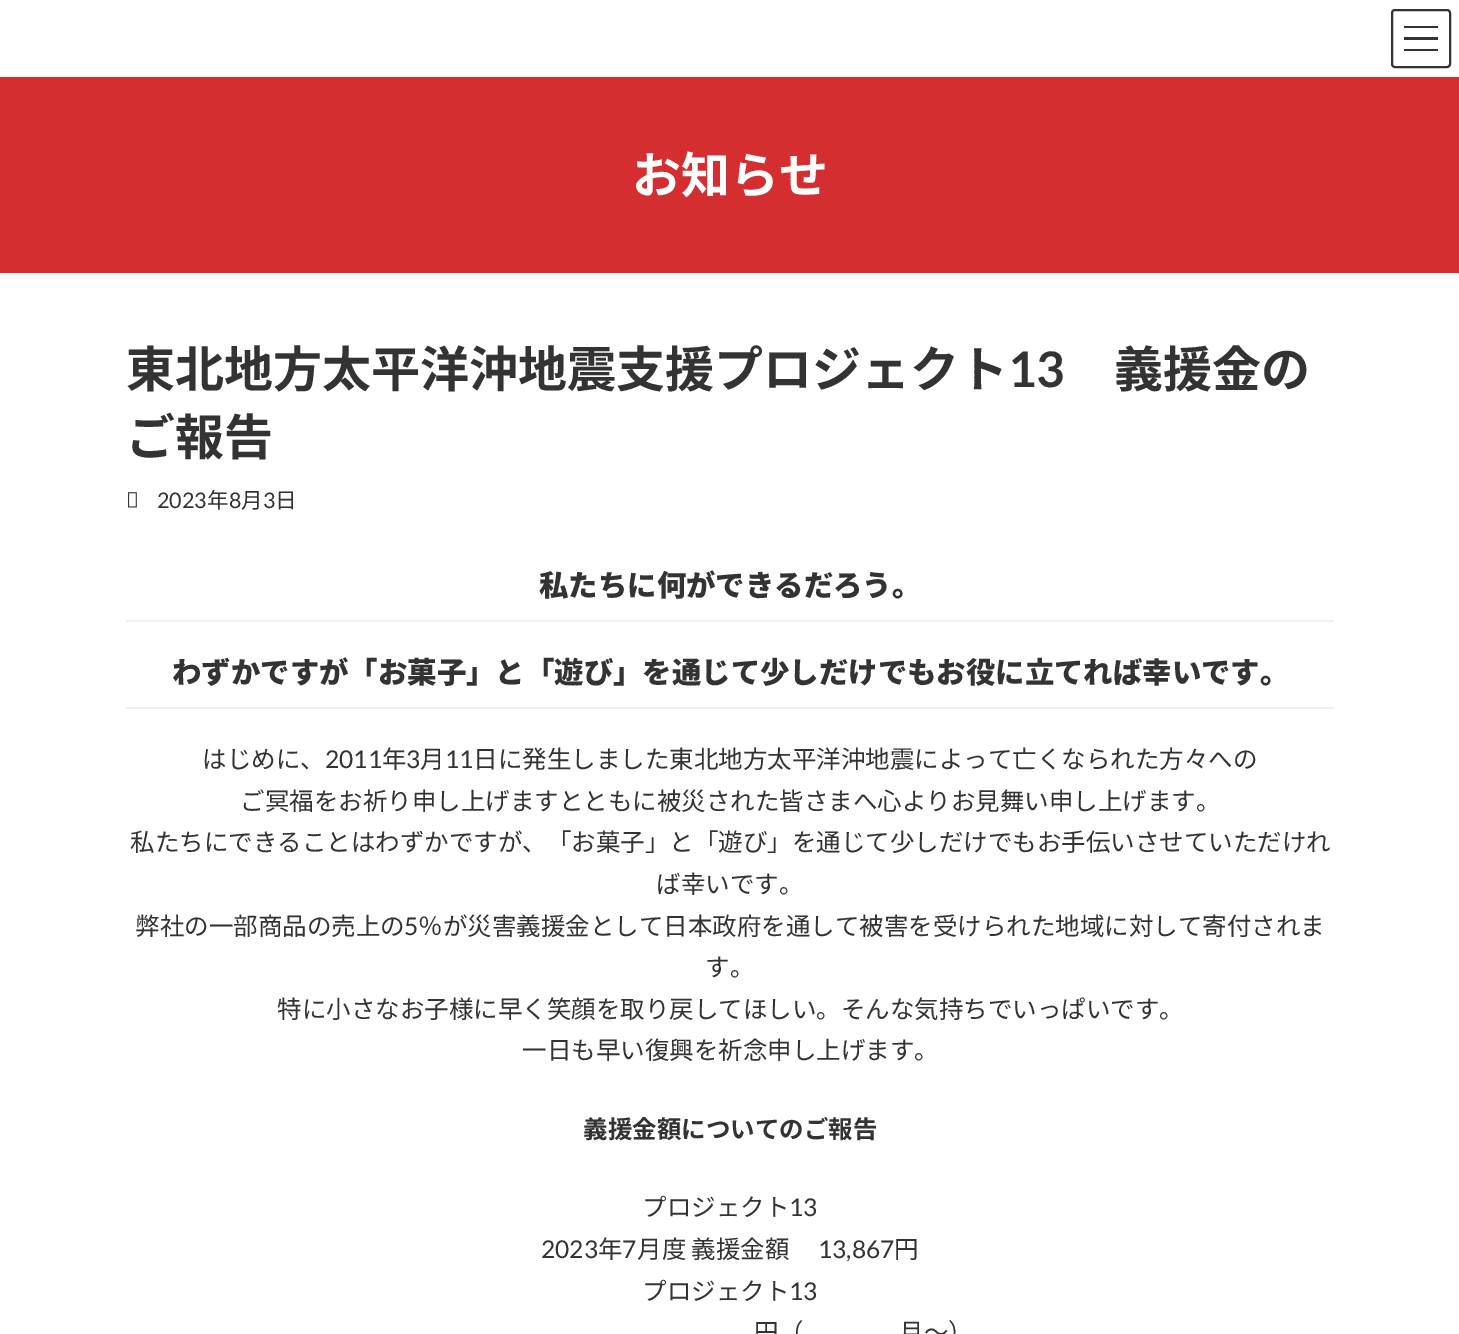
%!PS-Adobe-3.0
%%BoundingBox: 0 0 1459 1334
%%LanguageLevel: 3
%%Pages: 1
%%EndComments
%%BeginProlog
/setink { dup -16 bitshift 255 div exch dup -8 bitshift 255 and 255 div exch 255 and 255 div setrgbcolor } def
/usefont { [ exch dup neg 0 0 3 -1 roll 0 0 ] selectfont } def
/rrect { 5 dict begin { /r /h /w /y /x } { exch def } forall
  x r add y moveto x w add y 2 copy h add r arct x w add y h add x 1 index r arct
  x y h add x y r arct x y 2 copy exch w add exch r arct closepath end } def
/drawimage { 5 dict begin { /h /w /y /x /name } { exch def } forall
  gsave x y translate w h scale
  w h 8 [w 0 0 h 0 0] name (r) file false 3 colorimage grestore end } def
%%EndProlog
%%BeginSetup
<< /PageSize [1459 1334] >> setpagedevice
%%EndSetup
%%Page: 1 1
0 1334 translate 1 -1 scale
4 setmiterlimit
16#FFFFFF setink
0 0 1459 1334 rectfill
[
    [1404 26 34 2 16#333333]
    [1404 37 34 3 16#333333]
    [1404 49 34 2 16#333333]
] { aload pop setink rectfill } forall
2 setlinewidth
1392 10 58 57 3 rrect stroke
16#D52E31 setink
0 77 1459 196 rectfill
/NotoSansJP-Bold 49 usefont
16#FFFFFF setink
632 193 moveto (お知らせ) show
16#333333 setink
126 387 moveto (東北地方太平洋沖地震支援プロジェクト) show
/Lato-Bold 49 usefont
1008 387 moveto (13) show
/NotoSansJP-Bold 49 usefont
1114 387 moveto (義援金の) show
126 455 moveto (ご報告) show
(img1.raw) 128 492 9 16 drawimage
/Lato-Regular 21.5 usefont
157 508 moveto (2023) show
/NotoSansJP-Regular 21.5 usefont
207 508 moveto (年) show
/Lato-Regular 21.5 usefont
229 508 moveto (8) show
/NotoSansJP-Regular 21.5 usefont
241 508 moveto (月) show
/Lato-Regular 21.5 usefont
263 508 moveto (3) show
/NotoSansJP-Regular 21.5 usefont
275 508 moveto (日) show
16#F0F0F0 setink
126 620 1208 2 rectfill
/NotoSansJP-Black 29.4 usefont
16#333333 setink
539 596 moveto (私たちに何ができるだろう。) show
16#F0F0F0 setink
126 707 1208 2 rectfill
16#333333 setink
172 683 moveto (わずかですが「お菓子」と「遊び」を通じて少しだけでもお役に立てれば幸いです。) show
/NotoSansJP-Regular 24.5 usefont
202 768 moveto (はじめに、) show
/Lato-Regular 24.5 usefont
325 768 moveto (2011) show
/NotoSansJP-Regular 24.5 usefont
382 768 moveto (年) show
/Lato-Regular 24.5 usefont
406 768 moveto (3) show
/NotoSansJP-Regular 24.5 usefont
420 768 moveto (月) show
/Lato-Regular 24.5 usefont
445 768 moveto (11) show
/NotoSansJP-Regular 24.5 usefont
[
    [(日に発生しました東北地方太平洋沖地震によって亡くなられた方々への) 473 768]
    [(ご冥福をお祈り申し上げますとともに被災された皆さまへ心よりお見舞い申し上げます。) 240 810]
    [(私たちにできることはわずかですが、「お菓子」と「遊び」を通じて少しだけでもお手伝いさせていただけれ) 130 851]
    [(ば幸いです。) 656 893]
    [(弊社の一部商品の売上の) 135 935]
] { aload pop moveto show } forall
/Lato-Regular 24.5 usefont
404 935 moveto (5) show
/NotoSansJP-Regular 24.5 usefont
[
    [(％が災害義援金として日本政府を通して被害を受けられた地域に対して寄付されま) 418 935]
    [(す。) 705 976]
    [(特に小さなお子様に早く笑顔を取り戻してほしい。そんな気持ちでいっぱいです。) 277 1018]
    [(一日も早い復興を祈念申し上げます。) 522 1059]
] { aload pop moveto show } forall
/NotoSansJP-Bold 24.5 usefont
583 1138 moveto (義援金額についてのご報告) show
/NotoSansJP-Regular 24.5 usefont
642 1216 moveto (プロジェクト) show
/Lato-Regular 24.5 usefont
789 1216 moveto (13) show
541 1258 moveto (2023) show
/NotoSansJP-Regular 24.5 usefont
598 1258 moveto (年) show
/Lato-Regular 24.5 usefont
622 1258 moveto (7) show
/NotoSansJP-Regular 24.5 usefont
637 1258 moveto (月度 義援金額) show
/Lato-Regular 24.5 usefont
818 1258 moveto (13,867) show
/NotoSansJP-Regular 24.5 usefont
894 1258 moveto (円) show
642 1300 moveto (プロジェクト) show
/Lato-Regular 24.5 usefont
789 1300 moveto (13) show
/NotoSansJP-Regular 24.5 usefont
754 1341 moveto (円（) show
899 1341 moveto (月〜）) show
showpage
%%EOF
